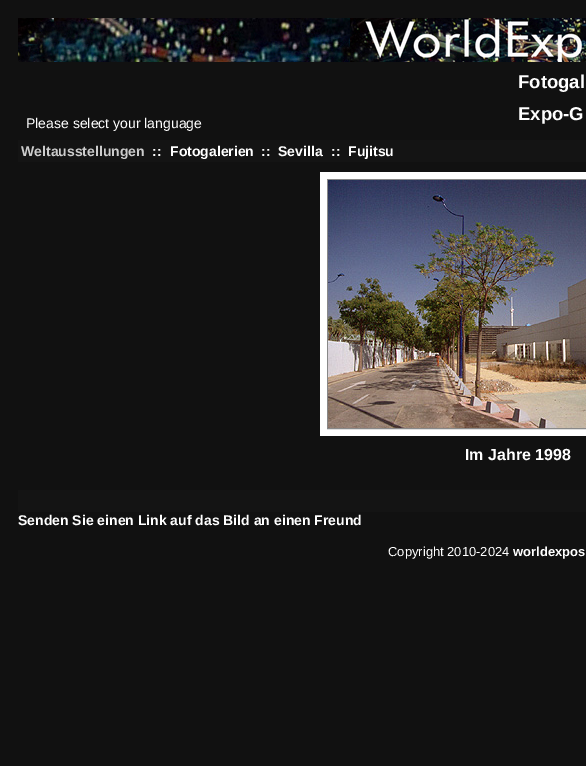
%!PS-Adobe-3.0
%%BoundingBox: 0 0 586 766
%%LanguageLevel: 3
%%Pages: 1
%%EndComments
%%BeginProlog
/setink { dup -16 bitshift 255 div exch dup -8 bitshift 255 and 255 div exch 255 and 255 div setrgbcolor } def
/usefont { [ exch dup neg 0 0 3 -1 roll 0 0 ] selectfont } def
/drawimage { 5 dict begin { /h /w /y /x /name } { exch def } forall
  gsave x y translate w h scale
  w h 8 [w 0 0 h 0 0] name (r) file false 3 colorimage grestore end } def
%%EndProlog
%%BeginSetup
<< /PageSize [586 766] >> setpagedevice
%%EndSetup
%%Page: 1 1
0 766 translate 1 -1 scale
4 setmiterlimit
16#111111 setink
0 0 586 766 rectfill
(img1.raw) 18 18 568 44 drawimage
/LiberationSans-Regular 14 usefont
16#FFFFFF setink
26 128 moveto (Please select your language) show
/LiberationSans-Bold 18.5 usefont
518 88 moveto (Fotogal) show
518 120 moveto (Expo-G) show
16#141414 setink
18 140 568 22 rectfill
/LiberationSans-Bold 14 usefont
16#CCCCCC setink
21 156 moveto (Weltausstellungen) show
16#FFFFFF setink
[
    [(::) 152 156]
    [(Fotogalerien) 170 156]
    [(::) 261 156]
    [(Sevilla) 278 156]
    [(::) 331 156]
    [(Fujitsu) 348 156]
] { aload pop moveto show } forall
320 172 266 264 rectfill
16#888888 setink
327.5 179.5 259 249 rectstroke
(img2.raw) 328 180 258 248 drawimage
/LiberationSans-Bold 16 usefont
16#FFFFFF setink
465 460 moveto (Im Jahre 1998) show
16#141414 setink
18 490 568 22 rectfill
/LiberationSans-Bold 14 usefont
16#FFFFFF setink
18 525 moveto (Senden Sie einen Link auf das Bild an einen Freund) show
/LiberationSans-Regular 13 usefont
388 556 moveto (Copyright 2010-2024) show
/LiberationSans-Bold 13 usefont
513 556 moveto (worldexpos) show
showpage
%%EOF
